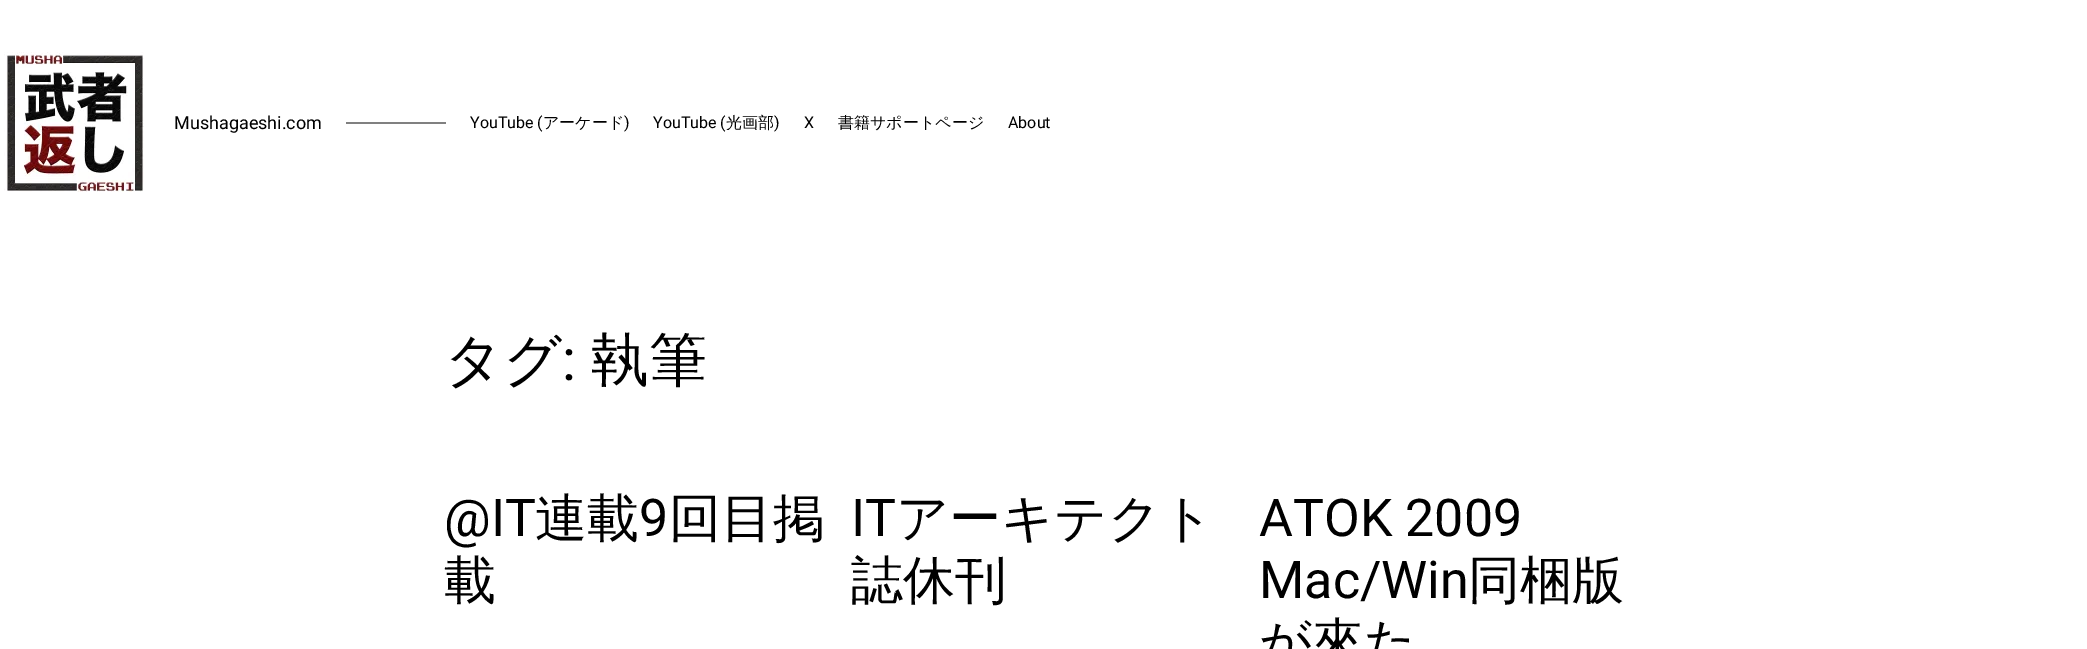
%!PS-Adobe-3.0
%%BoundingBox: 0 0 2087 649
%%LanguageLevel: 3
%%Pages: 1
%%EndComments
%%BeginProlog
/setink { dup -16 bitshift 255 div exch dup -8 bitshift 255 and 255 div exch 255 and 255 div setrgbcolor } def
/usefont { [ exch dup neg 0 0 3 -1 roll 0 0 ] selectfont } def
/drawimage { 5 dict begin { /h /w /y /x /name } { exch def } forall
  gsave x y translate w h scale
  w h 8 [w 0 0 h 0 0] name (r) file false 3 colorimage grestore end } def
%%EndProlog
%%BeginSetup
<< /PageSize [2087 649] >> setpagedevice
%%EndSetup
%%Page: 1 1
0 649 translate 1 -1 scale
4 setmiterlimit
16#FFFFFF setink
0 0 2087 649 rectfill
(img1.raw) 4 52 140 140 drawimage
/Roboto-Regular 18 usefont
16#000000 setink
174 129 moveto (Mushagaeshi.com) show
16#808080 setink
346 122 100 2 rectfill
/Roboto-Regular 16 usefont
16#000000 setink
470 128 moveto (YouTube \() show
/WenQuanYiZenHei-Medium 16 usefont
543 128 moveto (アーケード) show
/Roboto-Regular 16 usefont
624 128 moveto (\)) show
653 128 moveto (YouTube \() show
/WenQuanYiZenHei-Medium 16 usefont
726 128 moveto (光画部) show
/Roboto-Regular 16 usefont
774 128 moveto (\)) show
804 128 moveto (X) show
/WenQuanYiZenHei-Medium 16 usefont
838 128 moveto (書籍サポートページ) show
/Roboto-Regular 16 usefont
1008 128 moveto (About) show
/WenQuanYiZenHei-Medium 58 usefont
444 380 moveto (タグ) show
/Roboto-Regular 58 usefont
562 380 moveto (:) show
/WenQuanYiZenHei-Medium 58 usefont
591 380 moveto (執筆) show
/Roboto-Regular 52 usefont
444 536 moveto (@IT) show
/WenQuanYiZenHei-Medium 52 usefont
535 536 moveto (連載) show
/Roboto-Regular 52 usefont
639 536 moveto (9) show
/WenQuanYiZenHei-Medium 52 usefont
669 536 moveto (回目掲) show
444 598 moveto (載) show
/Roboto-Regular 52 usefont
851 536 moveto (IT) show
/WenQuanYiZenHei-Medium 52 usefont
896 536 moveto (アーキテクト) show
851 598 moveto (誌休刊) show
/Roboto-Regular 52 usefont
1259 536 moveto (ATOK 2009) show
1259 598 moveto (Mac/Win) show
/WenQuanYiZenHei-Medium 52 usefont
1468 598 moveto (同梱版) show
1259 660 moveto (が來た) show
showpage
%%EOF
